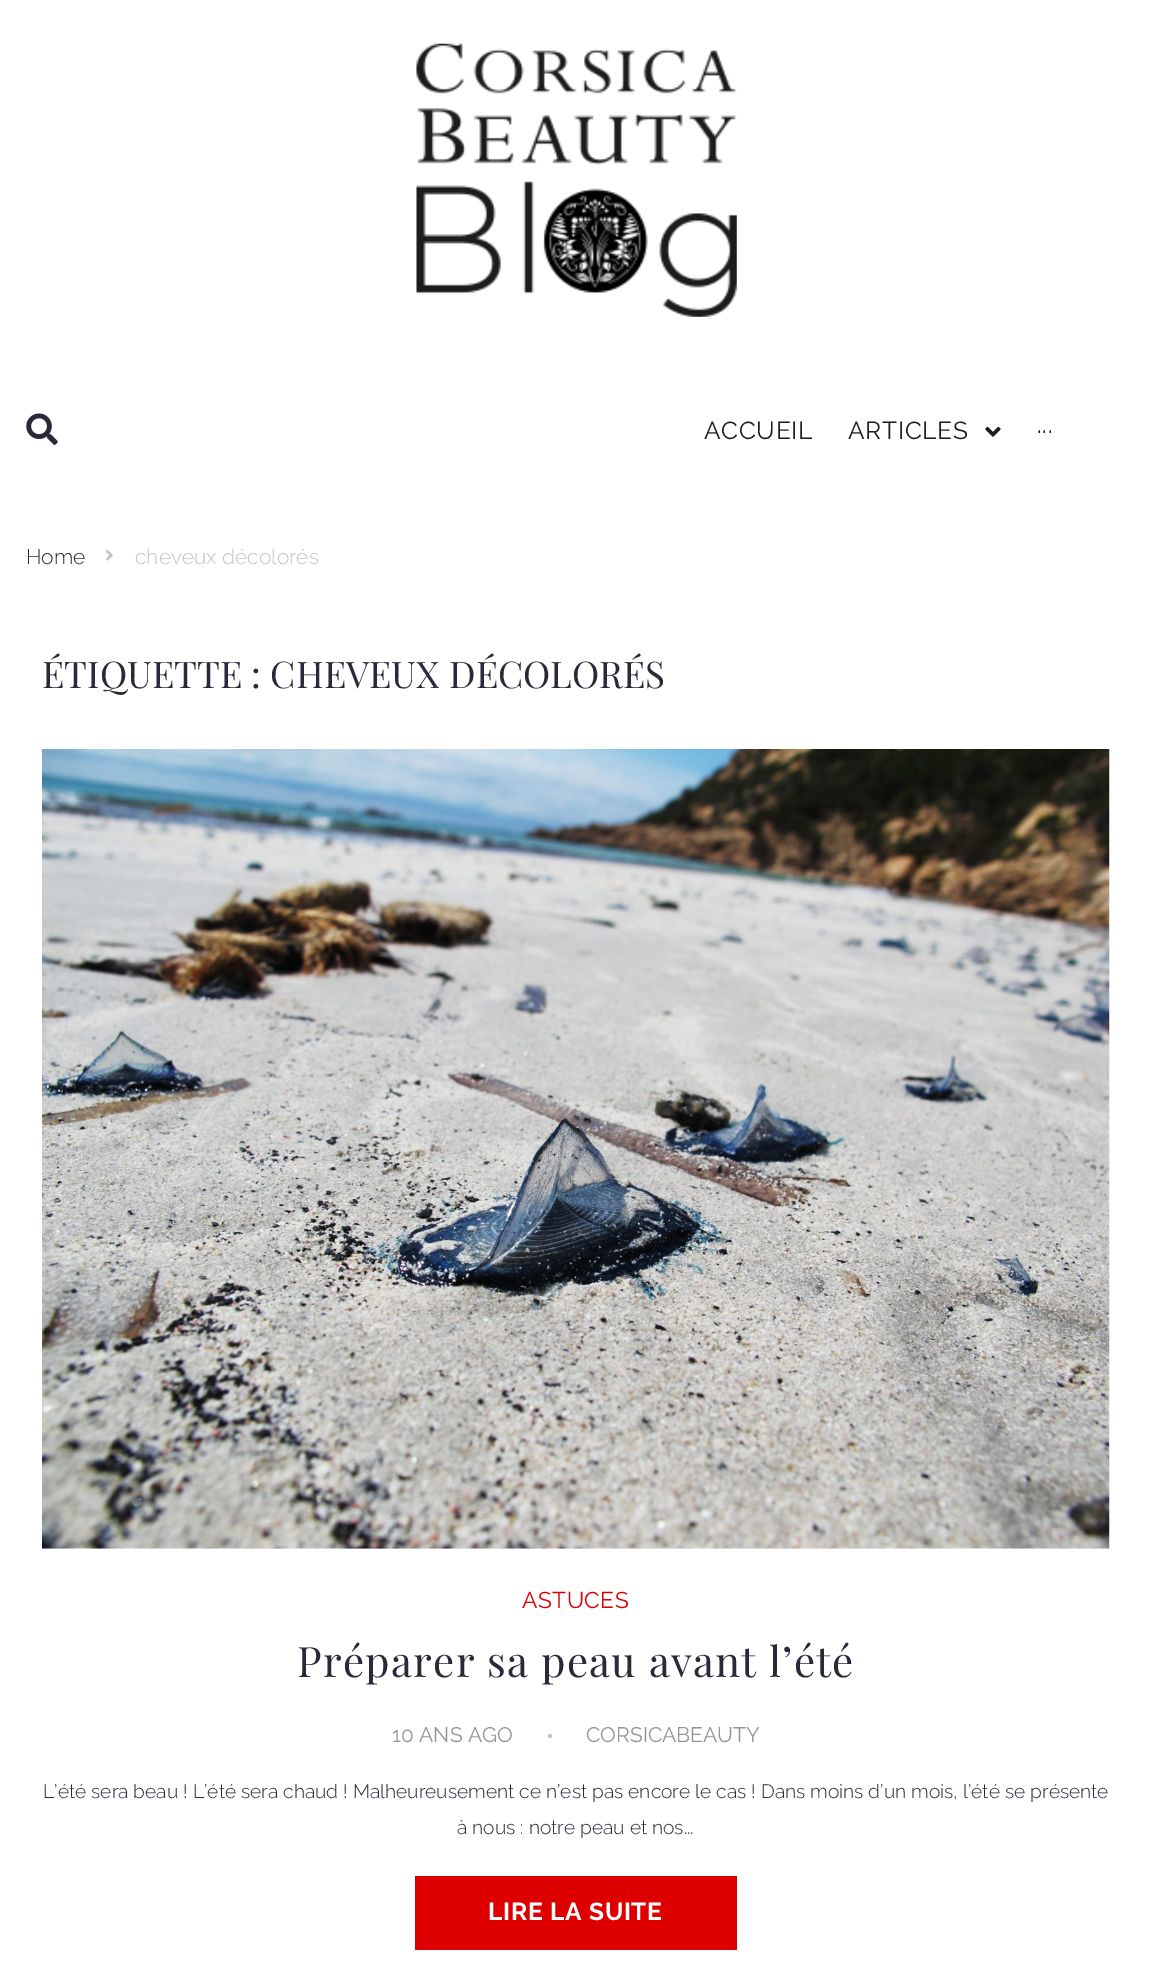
%!PS-Adobe-3.0
%%BoundingBox: 0 0 1150 1973
%%LanguageLevel: 3
%%Pages: 1
%%EndComments
%%BeginProlog
/setink { dup -16 bitshift 255 div exch dup -8 bitshift 255 and 255 div exch 255 and 255 div setrgbcolor } def
/usefont { [ exch dup neg 0 0 3 -1 roll 0 0 ] selectfont } def
/disc { newpath 0 360 arc closepath } def
/drawimage { 5 dict begin { /h /w /y /x /name } { exch def } forall
  gsave x y translate w h scale
  w h 8 [w 0 0 h 0 0] name (r) file false 3 colorimage grestore end } def
%%EndProlog
%%BeginSetup
<< /PageSize [1150 1973] >> setpagedevice
%%EndSetup
%%Page: 1 1
0 1973 translate 1 -1 scale
4 setmiterlimit
16#FFFFFF setink
0 0 1150 1973 rectfill
(img1.raw) 416 43 321 274 drawimage
(img2.raw) 26 413 32 32 drawimage
/Raleway-Regular 24.5 usefont
16#1C1C21 setink
704 439 moveto 0.75 0 (ACCUEIL) ashow
848 439 moveto 0.75 0 (ARTICLES) ashow
(img3.raw) 985 426 16 11 drawimage
1037 439 moveto 0.75 0 (···) ashow
/Raleway-Light 21 usefont
16#29293A setink
26 564 moveto (Home) show
(img4.raw) 106 549 7 12 drawimage
16#C3C3C9 setink
135 564 moveto (cheveux décolorés) show
/PlayfairDisplay-Regular 36.75 usefont
16#29293A setink
42 688 moveto (ÉTIQUETTE : CHEVEUX DÉCOLORÉS) show
(img5.raw) 42 749 1068 800 drawimage
/Raleway-Regular 22.75 usefont
16#DE0000 setink
522 1608 moveto 0.5 0 (ASTUCES) ashow
/PlayfairDisplay-Regular 42 usefont
16#29293A setink
297 1677 moveto 1.25 0 (Préparer sa peau avant l’été) ashow
/Raleway-Regular 21 usefont
16#939399 setink
392 1742 moveto (10 ANS AGO) show
16#C3C3C9 setink
550 1736 2 disc fill
16#939399 setink
586 1742 moveto (CORSICABEAUTY) show
/Raleway-Light 19.25 usefont
16#29293A setink
43 1798 moveto (L’été sera beau ! L’été sera chaud ! Malheureusement ce n’est pas encore le cas ! Dans moins d’un mois, l’été se présente) show
457 1834 moveto (à nous : notre peau et nos...) show
16#DE0000 setink
415 1876 322 74 rectfill
/Raleway-Bold 24.5 usefont
16#FFFFFF setink
488 1920 moveto 0.75 0 (LIRE LA SUITE) ashow
showpage
%%EOF
